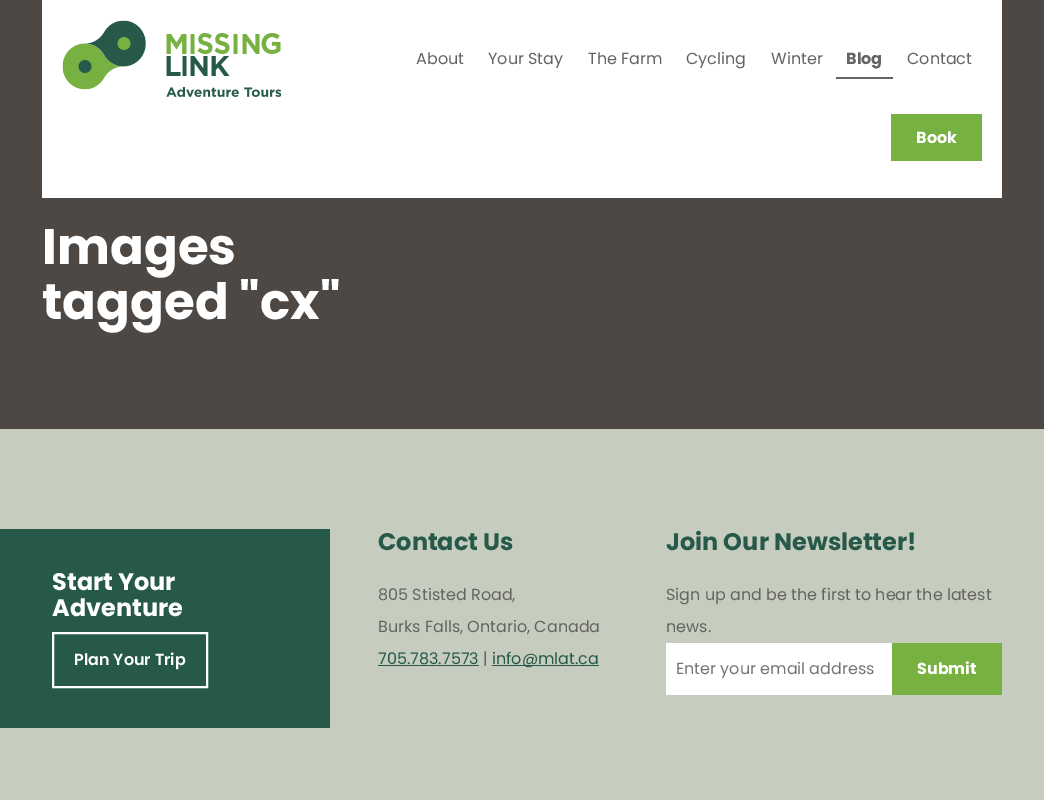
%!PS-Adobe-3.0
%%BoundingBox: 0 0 1044 800
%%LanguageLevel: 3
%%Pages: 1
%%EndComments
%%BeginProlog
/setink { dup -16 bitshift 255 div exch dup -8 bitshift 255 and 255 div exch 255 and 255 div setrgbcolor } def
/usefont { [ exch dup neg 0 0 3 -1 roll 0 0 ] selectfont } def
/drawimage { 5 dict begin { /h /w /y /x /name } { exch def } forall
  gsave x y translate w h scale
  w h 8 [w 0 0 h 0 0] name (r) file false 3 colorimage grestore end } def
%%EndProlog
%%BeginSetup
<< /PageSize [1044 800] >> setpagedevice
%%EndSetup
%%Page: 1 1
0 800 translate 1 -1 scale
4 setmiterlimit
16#C7CDBE setink
0 0 1044 800 rectfill
16#4D4843 setink
0 0 1044 429 rectfill
16#FFFFFF setink
42 0 960 198 rectfill
(img1.raw) 62 20 220 77 drawimage
/Poppins-Regular 16 usefont
16#646464 setink
[
    [(About) 416 64]
    [(Your Stay) 488 64]
    [(The Farm) 588 64]
    [(Cycling) 686 64]
    [(Winter) 771 64]
] { aload pop moveto show } forall
836 77 57 2 rectfill
/Poppins-Bold 16 usefont
846 64 moveto (Blog) show
/Poppins-Regular 16 usefont
907 64 moveto (Contact) show
16#76B142 setink
891 114 91 47 rectfill
/Poppins-Bold 16 usefont
16#FFFFFF setink
916 143 moveto (Book) show
/Poppins-Bold 50 usefont
42 264 moveto (Images) show
42 319 moveto (tagged "cx") show
16#26594A setink
0 529 330 199 rectfill
/Poppins-Bold 24 usefont
16#FFFFFF setink
52 590 moveto (Start Your) show
52 616 moveto (Adventure) show
2 setlinewidth
53 633 154 54 rectstroke
/Poppins-SemiBold 16 usefont
74 665 moveto (Plan Your Trip) show
/Poppins-Bold 24 usefont
16#26594A setink
378 550 moveto (Contact Us) show
/Poppins-Regular 16 usefont
16#646464 setink
378 600 moveto (805 Stisted Road,) show
378 632 moveto (Burks Falls, Ontario, Canada) show
16#26594A setink
378 664 moveto (705.783.7573) show
378 665 101 1 rectfill
16#646464 setink
483 664 moveto (|) show
16#26594A setink
492 665 107 1 rectfill
492 664 moveto (info@mlat.ca) show
/Poppins-Bold 24 usefont
666 550 moveto (Join Our Newsletter!) show
/Poppins-Regular 16 usefont
16#646464 setink
666 600 moveto (Sign up and be the first to hear the latest) show
666 632 moveto (news.) show
16#FFFFFF setink
666 643 226 52 rectfill
16#757575 setink
676 674 moveto (Enter your email address) show
16#76B142 setink
892 643 110 52 rectfill
/Poppins-Bold 16 usefont
16#FFFFFF setink
917 674 moveto (Submit) show
showpage
%%EOF
